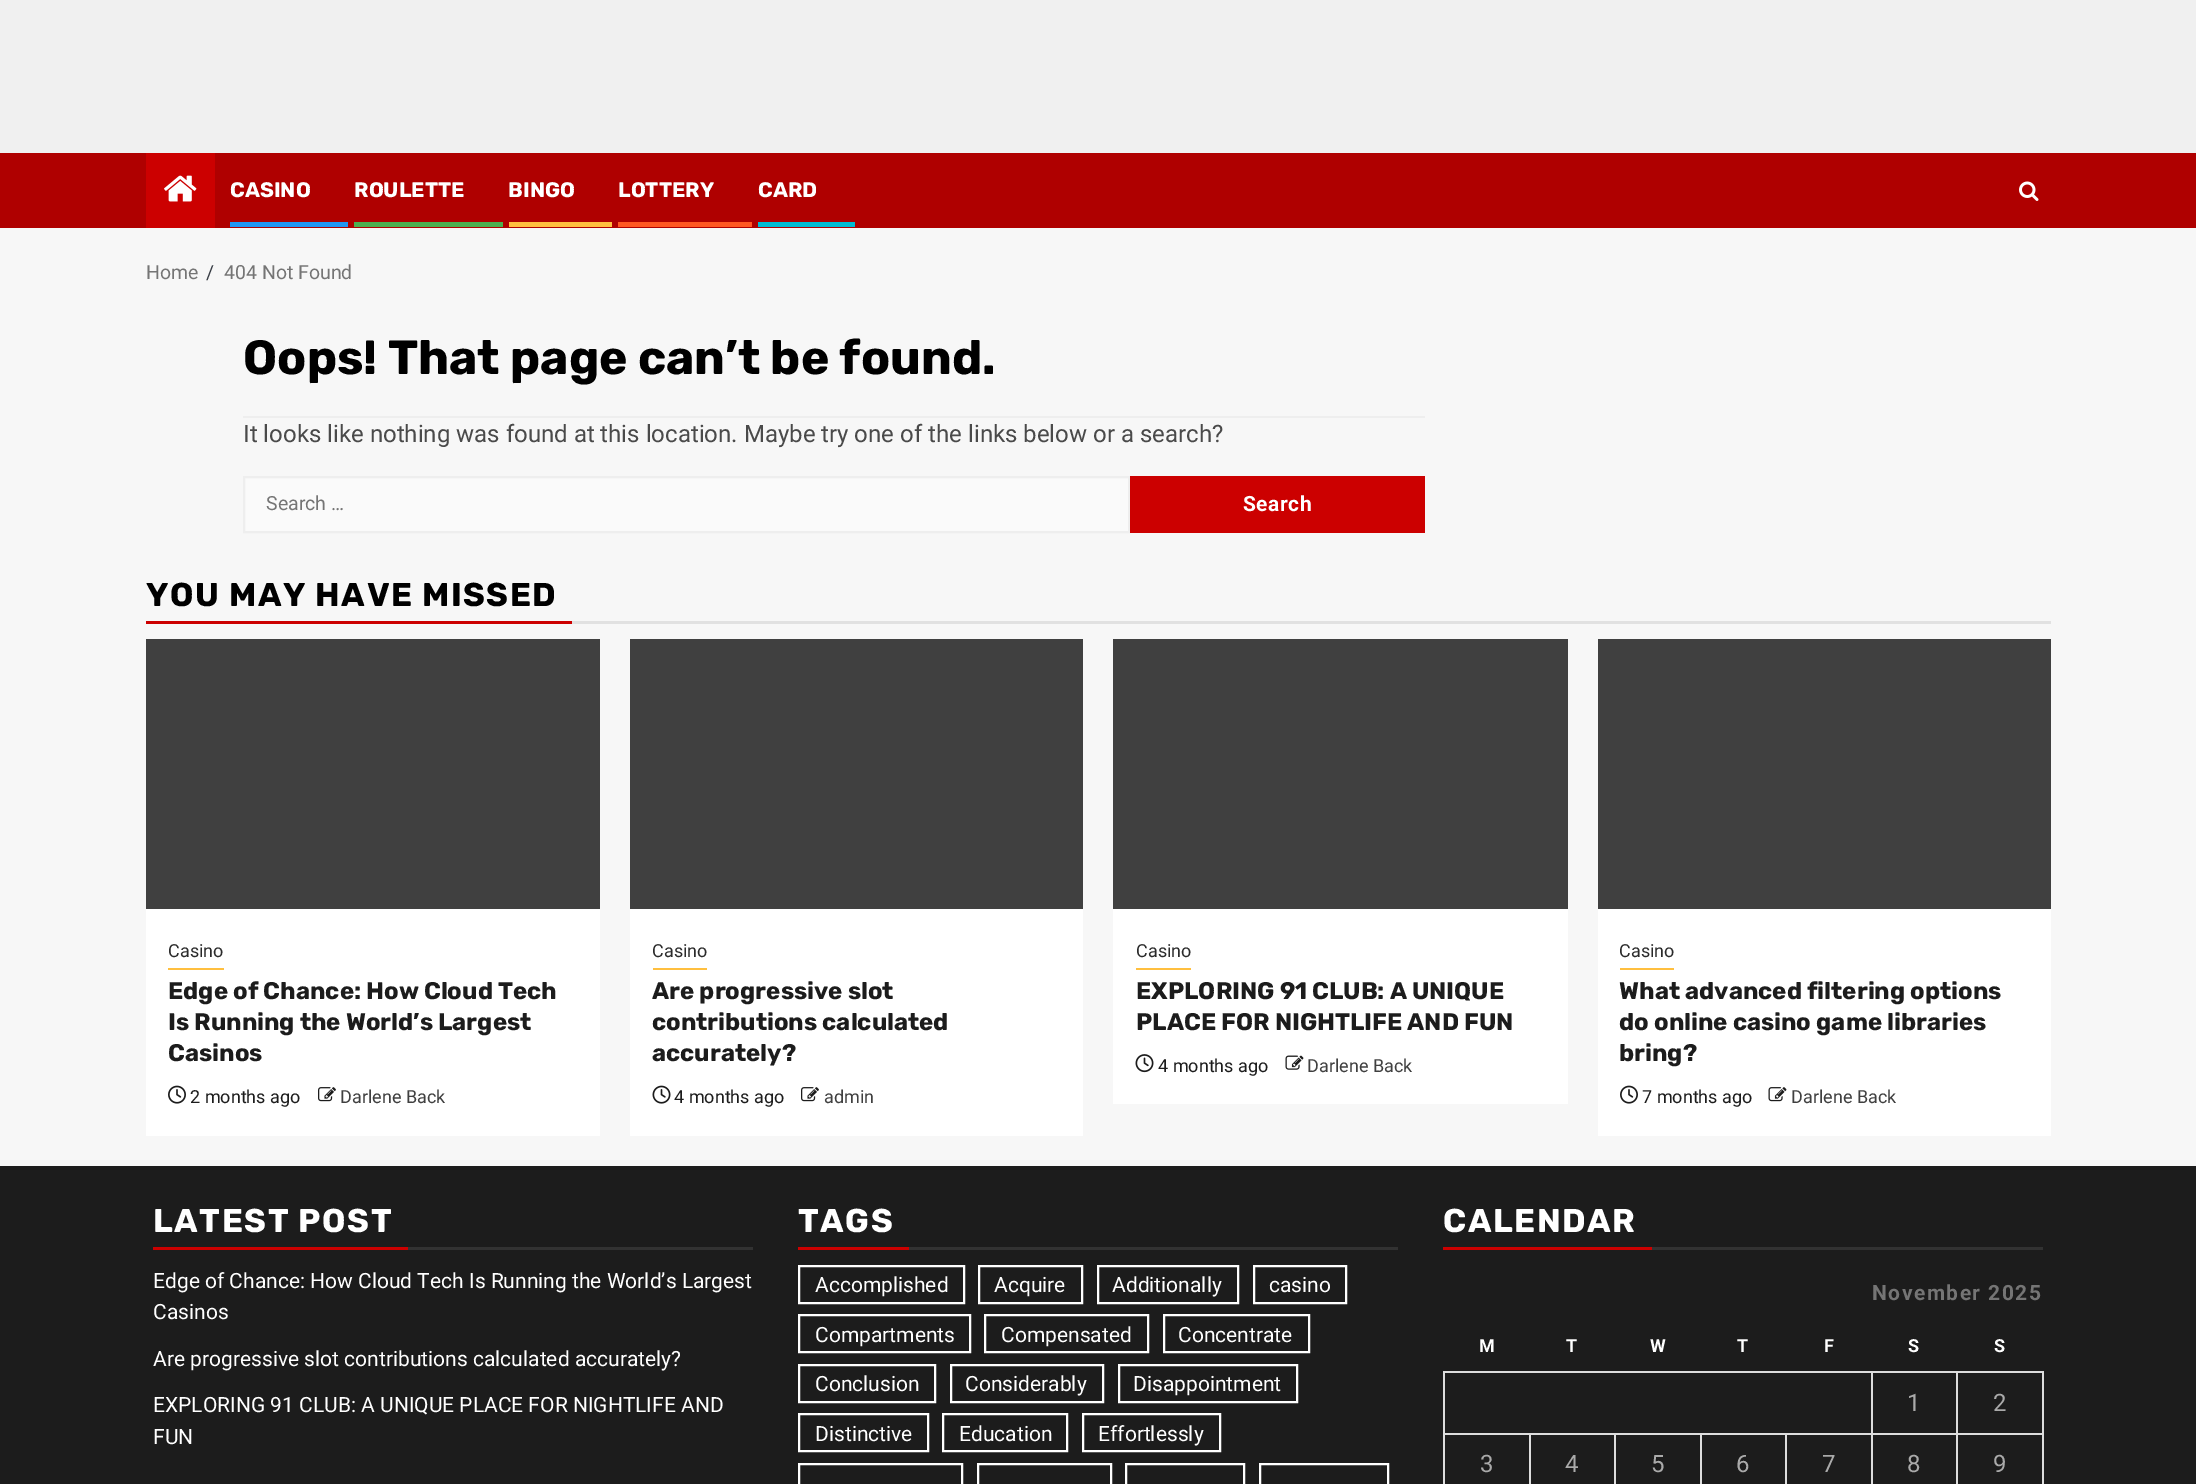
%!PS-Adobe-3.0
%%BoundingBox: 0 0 2196 1484
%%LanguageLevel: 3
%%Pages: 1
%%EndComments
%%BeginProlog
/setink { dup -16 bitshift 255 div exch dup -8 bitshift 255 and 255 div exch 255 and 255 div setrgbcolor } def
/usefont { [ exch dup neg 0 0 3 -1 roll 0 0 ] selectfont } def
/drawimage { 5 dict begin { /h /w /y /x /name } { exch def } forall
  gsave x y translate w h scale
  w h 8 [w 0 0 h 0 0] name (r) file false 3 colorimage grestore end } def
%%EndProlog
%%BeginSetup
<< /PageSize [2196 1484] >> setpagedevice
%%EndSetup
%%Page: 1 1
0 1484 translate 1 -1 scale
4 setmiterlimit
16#F7F7F7 setink
0 0 2196 1484 rectfill
[
    [0 0 2196 153 16#F0F0F0]
    [0 153 2196 75 16#AF0000]
    [146 153 69 75 16#CC0000]
] { aload pop setink rectfill } forall
(img1.raw) 164 175 33 27 drawimage
/Rubik-Bold 21 usefont
16#FFFFFF setink
230 197 moveto (CASINO) show
16#2196F3 setink
230 222 118 5 rectfill
16#FFFFFF setink
354 197 moveto (ROULETTE) show
16#4CAF50 setink
354 222 149 5 rectfill
16#FFFFFF setink
508 197 moveto (BINGO) show
16#FFBF3F setink
509 222 103 5 rectfill
16#FFFFFF setink
618 197 moveto (LOTTERY) show
16#FF5722 setink
618 222 134 5 rectfill
16#FFFFFF setink
758 197 moveto (CARD) show
16#00BCD4 setink
758 222 97 5 rectfill
(img2.raw) 2019 181 20 20 drawimage
/Roboto-Regular 19.5 usefont
16#757575 setink
146 279 moveto (Home) show
16#393E46 setink
206 279 moveto (/) show
16#757575 setink
224 279 moveto (404 Not Found) show
16#EEEEEE setink
243 416 1182 2 rectfill
/Rubik-Bold 48 usefont
16#000000 setink
243 374 moveto (Oops! That page can’t be found.) show
/Roboto-Regular 24 usefont
16#4A4A4A setink
243 442 moveto (It looks like nothing was found at this location. Maybe try one of the links below or a search?) show
16#FAFAFA setink
244 477 moveto 1129 477 lineto 1129 532 lineto 244 532 lineto closepath gsave fill grestore
16#EEEEEE setink
2 setlinewidth
stroke
/Roboto-Regular 19.5 usefont
16#757575 setink
266 510 moveto (Search …) show
16#CC0000 setink
1130 476 295 57 rectfill
/Roboto-Bold 21 usefont
16#FFFFFF setink
1243 511 moveto 0.5 0 (Search) ashow
16#CC0000 setink
146 621 426 3 rectfill
/Rubik-Bold 33 usefont
16#000000 setink
146 606 moveto 1.5 0 (YOU MAY HAVE MISSED) ashow
[
    [572 621 1479 3 16#E1E1E1]
    [146 909 454 227 16#FFFFFF]
    [146 639 454 270 16#404040]
    [168 968 56 2 16#FFBF3F]
] { aload pop setink rectfill } forall
/Roboto-Regular 18 usefont
16#2B2B2B setink
168 957 moveto (Casino) show
/Rubik-Bold 24 usefont
16#1C1C1C setink
[
    [(Edge of Chance: How Cloud Tech) 168 999]
    [(Is Running the World’s Largest) 168 1030]
    [(Casinos) 168 1061]
] { aload pop moveto show } forall
(img3.raw) 168 1085 18 19 drawimage
/Roboto-Regular 18 usefont
190 1103 moveto (2 months ago) show
(img4.raw) 318 1087 18 15 drawimage
16#404040 setink
340 1103 moveto (Darlene Back) show
[
    [630 909 453 227 16#FFFFFF]
    [630 639 453 270 16#404040]
    [653 968 54 2 16#FFBF3F]
] { aload pop setink rectfill } forall
16#2B2B2B setink
652 957 moveto (Casino) show
/Rubik-Bold 24 usefont
16#1C1C1C setink
[
    [(Are progressive slot) 652 999]
    [(contributions calculated) 652 1030]
    [(accurately?) 652 1061]
] { aload pop moveto show } forall
(img5.raw) 652 1085 19 19 drawimage
/Roboto-Regular 18 usefont
674 1103 moveto (4 months ago) show
(img4.raw) 801 1087 18 15 drawimage
16#404040 setink
824 1103 moveto (admin) show
[
    [1113 909 455 195 16#FFFFFF]
    [1113 639 455 270 16#404040]
    [1136 968 55 2 16#FFBF3F]
] { aload pop setink rectfill } forall
16#2B2B2B setink
1136 957 moveto (Casino) show
/Rubik-Bold 24 usefont
16#1C1C1C setink
1136 999 moveto (EXPLORING 91 CLUB: A UNIQUE) show
1136 1030 moveto (PLACE FOR NIGHTLIFE AND FUN) show
(img6.raw) 1135 1054 19 19 drawimage
/Roboto-Regular 18 usefont
1158 1072 moveto (4 months ago) show
(img7.raw) 1285 1055 19 15 drawimage
16#404040 setink
1307 1072 moveto (Darlene Back) show
[
    [1598 909 453 227 16#FFFFFF]
    [1598 639 453 270 16#404040]
    [1620 968 54 2 16#FFBF3F]
] { aload pop setink rectfill } forall
16#2B2B2B setink
1619 957 moveto (Casino) show
/Rubik-Bold 24 usefont
16#1C1C1C setink
[
    [(What advanced filtering options) 1619 999]
    [(do online casino game libraries) 1619 1030]
    [(bring?) 1619 1061]
] { aload pop moveto show } forall
(img3.raw) 1620 1085 18 19 drawimage
/Roboto-Regular 18 usefont
1642 1103 moveto (7 months ago) show
(img8.raw) 1768 1087 19 15 drawimage
16#404040 setink
1791 1103 moveto (Darlene Back) show
16#1C1C1C setink
0 1166 2196 318 rectfill
16#CC0000 setink
153 1247 255 3 rectfill
/Rubik-Bold 33 usefont
16#FFFFFF setink
153 1232 moveto 1.5 0 (LATEST POST) ashow
16#323232 setink
408 1247 345 3 rectfill
/Roboto-Regular 21 usefont
16#FFFFFF setink
[
    [(Edge of Chance: How Cloud Tech Is Running the World’s Largest) 153 1288]
    [(Casinos) 153 1319]
    [(Are progressive slot contributions calculated accurately?) 153 1366]
    [(EXPLORING 91 CLUB: A UNIQUE PLACE FOR NIGHTLIFE AND) 153 1412]
    [(FUN) 153 1444]
] { aload pop moveto show } forall
16#CC0000 setink
798 1247 111 3 rectfill
/Rubik-Bold 33 usefont
16#FFFFFF setink
798 1232 moveto 1.5 0 (TAGS) ashow
16#323232 setink
909 1247 489 3 rectfill
16#FFFFFF setink
799 1266 165 37 rectstroke
/Roboto-Regular 21 usefont
815 1292 moveto (Accomplished) show
979 1266 103 37 rectstroke
994 1292 moveto (Acquire) show
1098 1266 140 37 rectstroke
1112 1292 moveto (Additionally) show
1254 1266 92 37 rectstroke
1269 1292 moveto (casino) show
799 1315 171 37 rectstroke
815 1342 moveto (Compartments) show
985 1315 163 37 rectstroke
1001 1342 moveto (Compensated) show
1164 1315 145 37 rectstroke
1178 1342 moveto (Concentrate) show
799 1365 136 37 rectstroke
815 1391 moveto (Conclusion) show
951 1365 152 37 rectstroke
965 1391 moveto (Considerably) show
1119 1365 178 37 rectstroke
1133 1391 moveto (Disappointment) show
799 1414 129 37 rectstroke
815 1441 moveto (Distinctive) show
943 1414 124 37 rectstroke
959 1441 moveto (Education) show
1083 1414 137 37 rectstroke
1098 1441 moveto (Effortlessly) show
799 1464 163 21 rectstroke
978 1464 133 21 rectstroke
1126 1464 118 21 rectstroke
1260 1464 128 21 rectstroke
16#CC0000 setink
1443 1247 209 3 rectfill
/Rubik-Bold 33 usefont
16#FFFFFF setink
1443 1232 moveto 1.5 0 (CALENDAR) ashow
16#323232 setink
1652 1247 391 3 rectfill
/Roboto-Bold 21 usefont
16#757575 setink
1872 1300 moveto 1.5 0 (November 2025) ashow
/Roboto-Bold 18 usefont
16#FFFFFF setink
[
    [(M) 1479 1352]
    [(T) 1566 1352]
    [(W) 1650 1352]
    [(T) 1737 1352]
    [(F) 1824 1352]
    [(S) 1908 1352]
    [(S) 1994 1352]
] { aload pop moveto show } forall
[
    [1956 1371 87 2 16#DDDDDD]
    [1956 1433 87 2 16#DDDDDD]
    [1956 1433 2 51 16#DDDDDD]
    [1871 1433 87 2 16#DDDDDD]
    [1956 1371 2 63 16#DDDDDD]
    [1871 1371 87 2 16#DDDDDD]
    [1871 1433 2 51 16#DDDDDD]
    [1785 1433 87 2 16#DDDDDD]
    [1871 1371 2 63 16#DDDDDD]
    [1443 1371 429 2 16#DDDDDD]
    [1785 1433 2 51 16#DDDDDD]
    [1700 1433 87 2 16#DDDDDD]
    [1700 1433 2 51 16#DDDDDD]
    [1614 1433 87 2 16#DDDDDD]
    [1614 1433 2 51 16#DDDDDD]
    [1529 1433 87 2 16#DDDDDD]
    [1529 1433 2 51 16#DDDDDD]
    [1443 1433 87 2 16#DDDDDD]
    [1443 1433 2 51 16#DDDDDD]
    [1443 1371 2 63 16#DDDDDD]
] { aload pop setink rectfill } forall
/Roboto-Regular 24 usefont
16#AAAAAA setink
1907 1411 moveto (1) show
16#DDDDDD setink
2042 1433 2 51 rectfill
2042 1371 2 63 rectfill
16#AAAAAA setink
[
    [(2) 1993 1411]
    [(3) 1480 1472]
    [(4) 1565 1472]
    [(5) 1651 1472]
    [(6) 1736 1472]
    [(7) 1822 1472]
    [(8) 1907 1472]
    [(9) 1993 1472]
] { aload pop moveto show } forall
showpage
%%EOF
